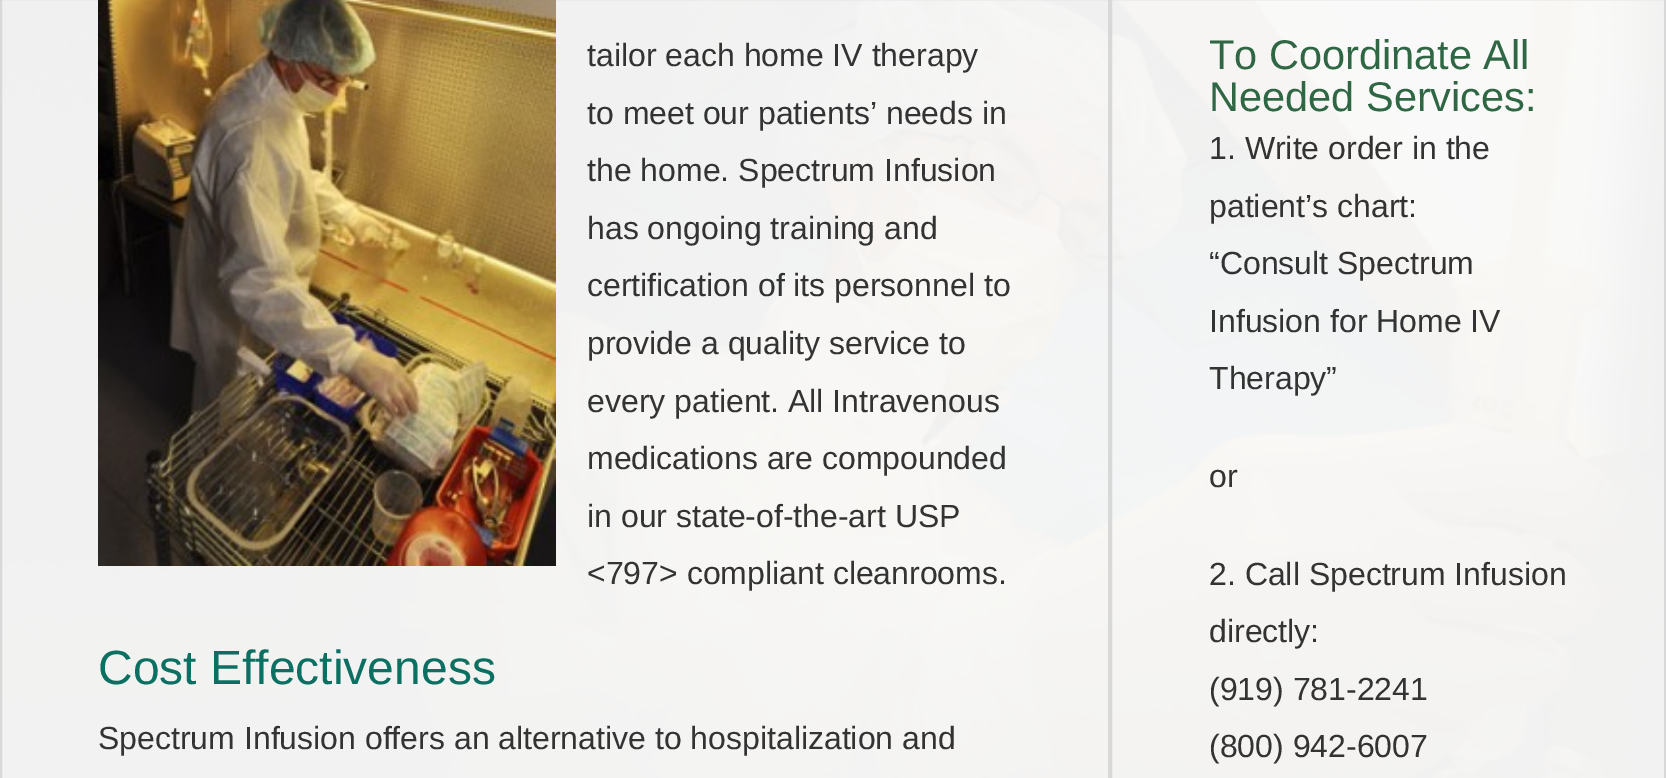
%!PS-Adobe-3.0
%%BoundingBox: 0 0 1666 778
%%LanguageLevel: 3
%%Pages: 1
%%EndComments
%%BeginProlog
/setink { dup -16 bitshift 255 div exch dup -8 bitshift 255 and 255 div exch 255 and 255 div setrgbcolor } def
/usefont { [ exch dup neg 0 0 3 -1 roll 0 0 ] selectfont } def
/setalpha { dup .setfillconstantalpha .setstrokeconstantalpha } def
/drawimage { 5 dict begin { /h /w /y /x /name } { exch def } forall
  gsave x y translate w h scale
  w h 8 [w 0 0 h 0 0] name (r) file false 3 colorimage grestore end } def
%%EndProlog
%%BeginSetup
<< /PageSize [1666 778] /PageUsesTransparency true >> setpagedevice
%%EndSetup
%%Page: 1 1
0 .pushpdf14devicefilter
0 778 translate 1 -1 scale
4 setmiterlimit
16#FFFFFF setink
0 0 1666 778 rectfill
(img1.raw) 2 0 1662 778 drawimage
0.74 setalpha
1 -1 moveto 1109 -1 lineto 1109 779 lineto 1 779 lineto closepath fill
1 setalpha
16#D8D8D8 setink
2 setlinewidth
1 -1 moveto 1109 -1 lineto 1109 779 lineto 1 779 lineto closepath stroke
(img2.raw) 98 0 458 566 drawimage
/LiberationSans-Regular 32 usefont
16#333333 setink
[
    [(tailor each home IV therapy) 587 66]
    [(to meet our patients’ needs in) 587 124]
    [(the home. Spectrum Infusion) 587 181]
    [(has ongoing training and) 587 239]
    [(certification of its personnel to) 587 296]
    [(provide a quality service to) 587 354]
    [(every patient. All Intravenous) 587 412]
    [(medications are compounded) 587 469]
    [(in our state-of-the-art USP) 587 527]
    [(<797> compliant cleanrooms.) 587 584]
] { aload pop moveto show } forall
/LiberationSans-Regular 48 usefont
16#0B6F62 setink
98 684 moveto (Cost Effectiveness) show
/LiberationSans-Regular 32 usefont
16#333333 setink
98 749 moveto (Spectrum Infusion offers an alternative to hospitalization and) show
0.74 setalpha
16#FFFFFF setink
1111 -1 moveto 1665 -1 lineto 1665 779 lineto 1111 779 lineto closepath fill
1 setalpha
16#D8D8D8 setink
1111 -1 moveto 1665 -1 lineto 1665 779 lineto 1111 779 lineto closepath stroke
/LiberationSans-Regular 41.5 usefont
16#2F6745 setink
1209 69 moveto (To Coordinate All) show
1209 111 moveto (Needed Services:) show
/LiberationSans-Regular 32 usefont
16#333333 setink
[
    [(1. Write order in the) 1209 159]
    [(patient’s chart:) 1209 217]
    [(“Consult Spectrum) 1209 274]
    [(Infusion for Home IV) 1209 332]
    [(Therapy”) 1209 389]
    [(or) 1209 487]
    [(2. Call Spectrum Infusion) 1209 585]
    [(directly:) 1209 642]
    [(\(919\) 781-2241) 1209 700]
    [(\(800\) 942-6007) 1209 757]
] { aload pop moveto show } forall
.poppdf14devicefilter showpage
%%EOF
